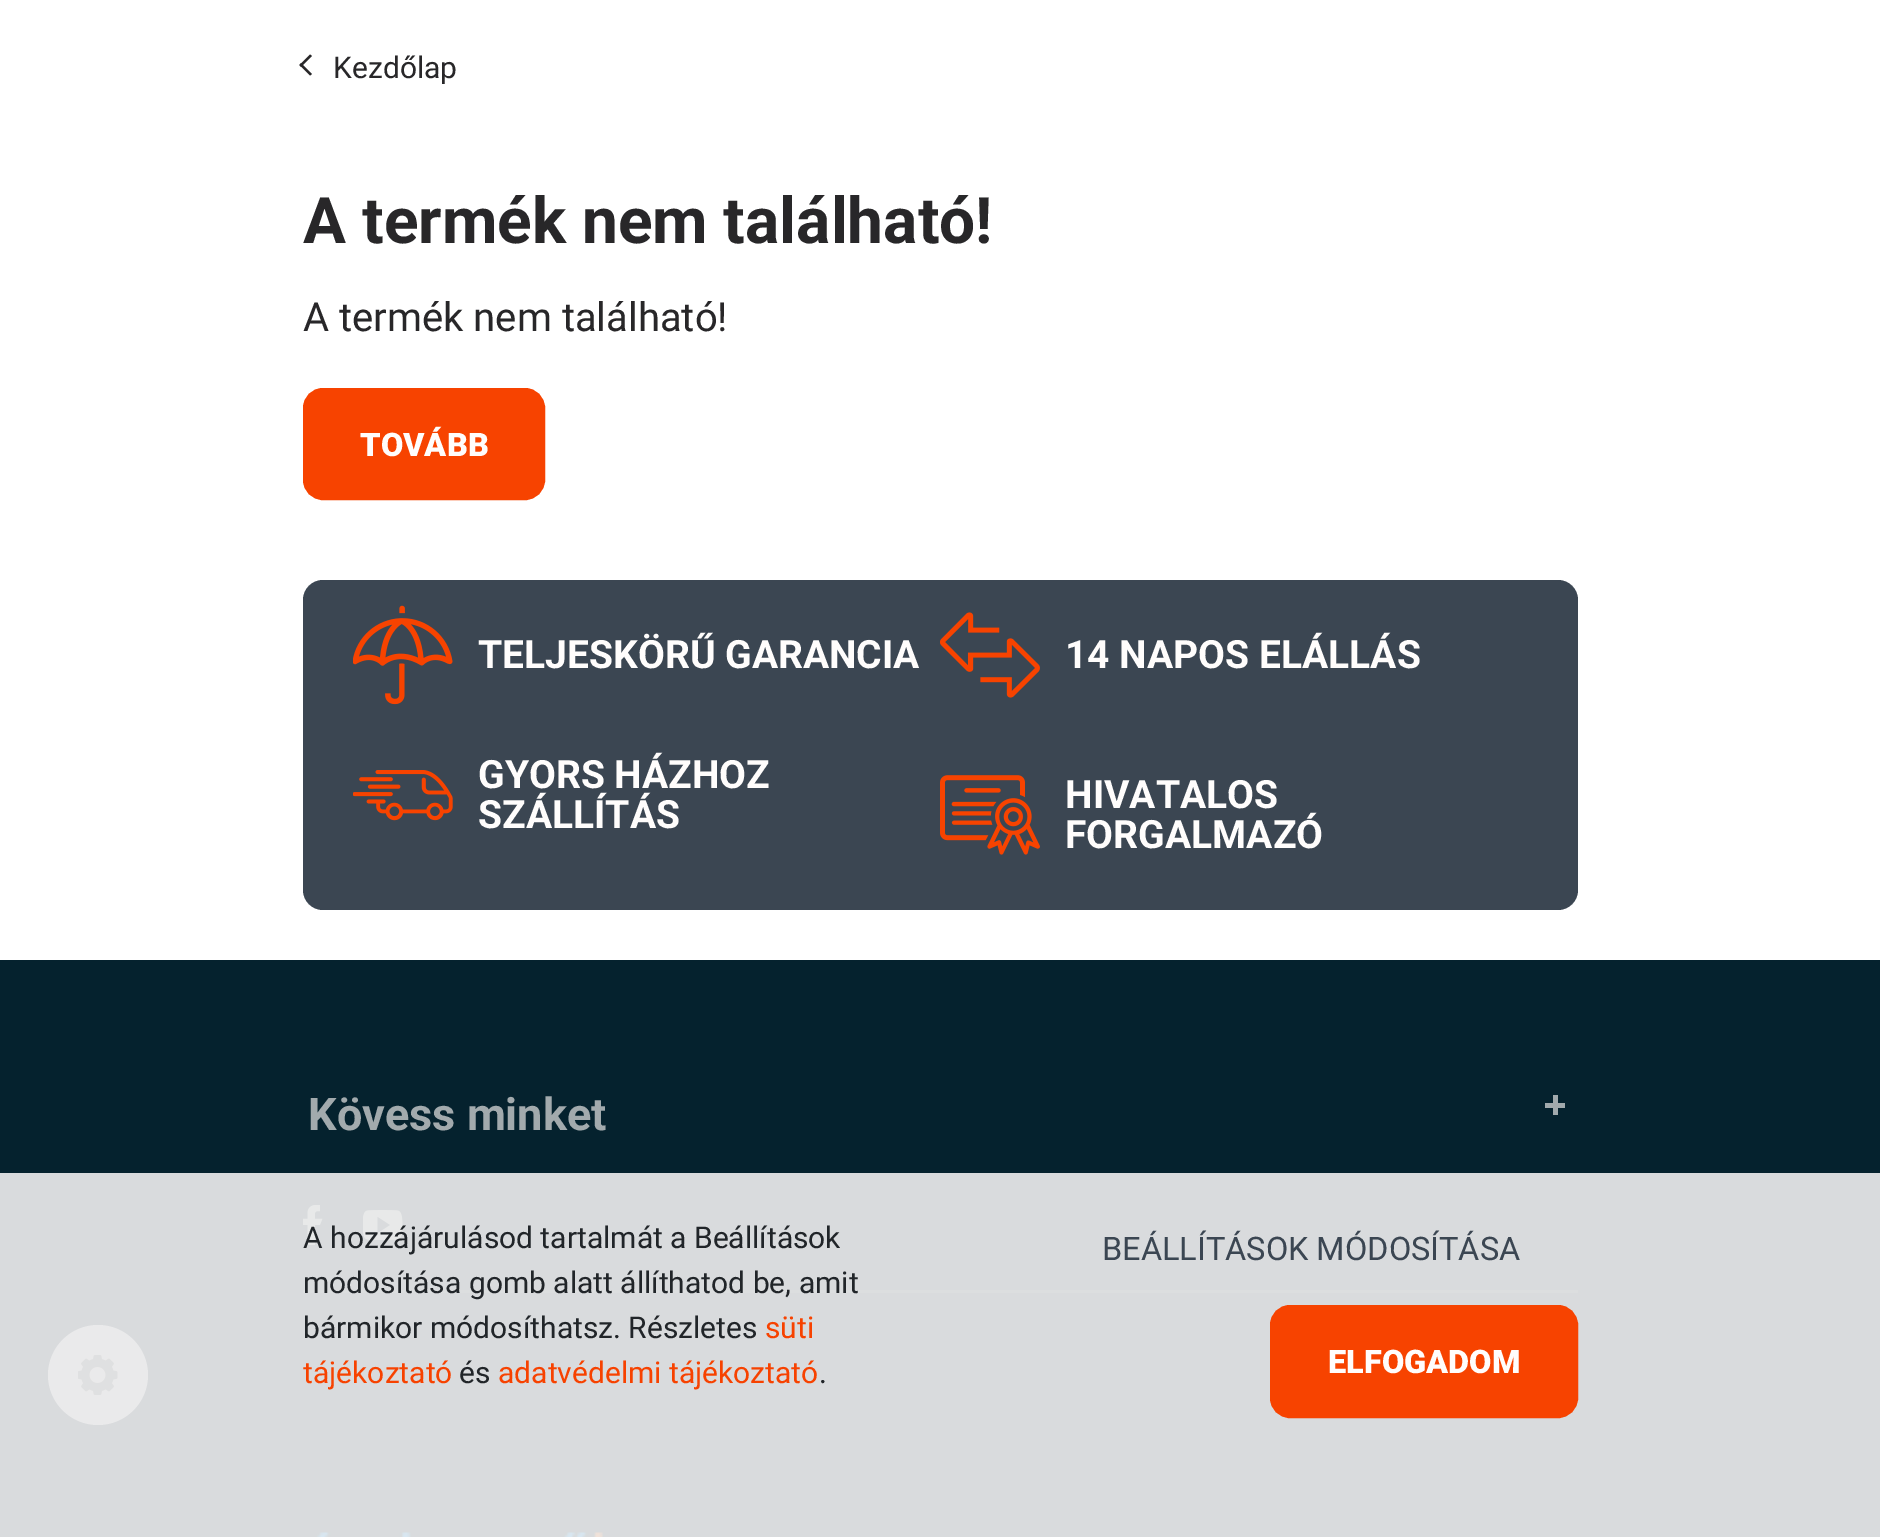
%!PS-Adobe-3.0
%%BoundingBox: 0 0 1880 1537
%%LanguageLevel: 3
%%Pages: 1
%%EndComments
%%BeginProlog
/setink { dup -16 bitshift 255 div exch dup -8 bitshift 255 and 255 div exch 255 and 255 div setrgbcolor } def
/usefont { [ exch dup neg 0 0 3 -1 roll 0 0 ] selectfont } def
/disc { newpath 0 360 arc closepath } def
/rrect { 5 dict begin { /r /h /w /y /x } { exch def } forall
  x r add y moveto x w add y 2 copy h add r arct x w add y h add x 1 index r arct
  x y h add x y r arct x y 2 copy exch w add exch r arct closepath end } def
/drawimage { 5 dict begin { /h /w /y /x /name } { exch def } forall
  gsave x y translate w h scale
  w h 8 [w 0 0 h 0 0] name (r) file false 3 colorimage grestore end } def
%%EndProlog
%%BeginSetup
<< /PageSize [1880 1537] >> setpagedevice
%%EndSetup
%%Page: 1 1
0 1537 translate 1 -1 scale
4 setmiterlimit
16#FFFFFF setink
0 0 1880 1537 rectfill
16#282729 setink
312 74 moveto 310 75.5 lineto 299.5 65 lineto 301 63 lineto closepath fill
312 56 moveto 301 67 lineto 299.5 65 lineto 310 54.5 lineto closepath fill
/Roboto-Regular 30 usefont
333 78 moveto (Kezdőlap) show
/Roboto-Bold 64 usefont
303 243 moveto (A termék nem található!) show
/Roboto-Regular 40 usefont
303 331 moveto (A termék nem található!) show
16#F74300 setink
305.5 390.5 237 107 17.5 rrect gsave fill grestore
5 setlinewidth
stroke
/Roboto-Black 32.5 usefont
16#FFFDFC setink
360 456 moveto (TOVÁBB) show
16#3B4652 setink
303 580 1275 330 20 rrect fill
(img1.raw) 353 605 100 100 drawimage
/Roboto-Bold 39 usefont
16#FFFDFC setink
478 668 moveto (TELJESKÖRŰ GARANCIA) show
(img2.raw) 940 612 100 86 drawimage
1065 668 moveto (14 NAPOS ELÁLLÁS) show
(img3.raw) 353 770 100 51 drawimage
478 788 moveto (GYORS HÁZHOZ) show
478 828 moveto (SZÁLLÍTÁS) show
(img4.raw) 940 775 100 80 drawimage
1065 808 moveto (HIVATALOS) show
1065 848 moveto (FORGALMAZÓ) show
[
    [0 960 1880 213 16#05222E]
    [0 1173 1880 364 16#D9DBDD]
    [303 1290 1275 3 16#DCDEDF]
] { aload pop setink rectfill } forall
/Roboto-Bold 45 usefont
16#A2AAAD setink
308 1130 moveto (Kövess minket) show
1553 1095 5 20 rectfill
1545 1103 20 5 rectfill
(img5.raw) 303 1205 20 40 drawimage
(img6.raw) 363 1210 40 30 drawimage
(img7.raw) 316 1532 287 5 drawimage
16#EAEAEB setink
98 1375 50 disc fill
(img8.raw) 78 1355 40 40 drawimage
/Roboto-Regular 30 usefont
16#212529 setink
[
    [(A hozzájárulásod tartalmát a Beállítások) 303 1248]
    [(módosítása gomb alatt állíthatod be, amit) 303 1293]
    [(bármikor módosíthatsz. Részletes) 303 1338]
] { aload pop moveto show } forall
16#F74200 setink
765 1338 moveto (süti) show
303 1383 moveto (tájékoztató) show
16#212529 setink
459 1383 moveto (és) show
16#F74200 setink
498 1383 moveto (adatvédelmi tájékoztató) show
16#212529 setink
819 1383 moveto (.) show
/Roboto-Regular 32.5 usefont
16#3B4652 setink
1102 1260 moveto (BEÁLLÍTÁSOK MÓDOSÍTÁSA) show
16#F74300 setink
1272.5 1307.5 303 108 17.5 rrect gsave fill grestore
stroke
/Roboto-Black 32.5 usefont
16#FFFDFC setink
1328 1373 moveto (ELFOGADOM) show
showpage
%%EOF
